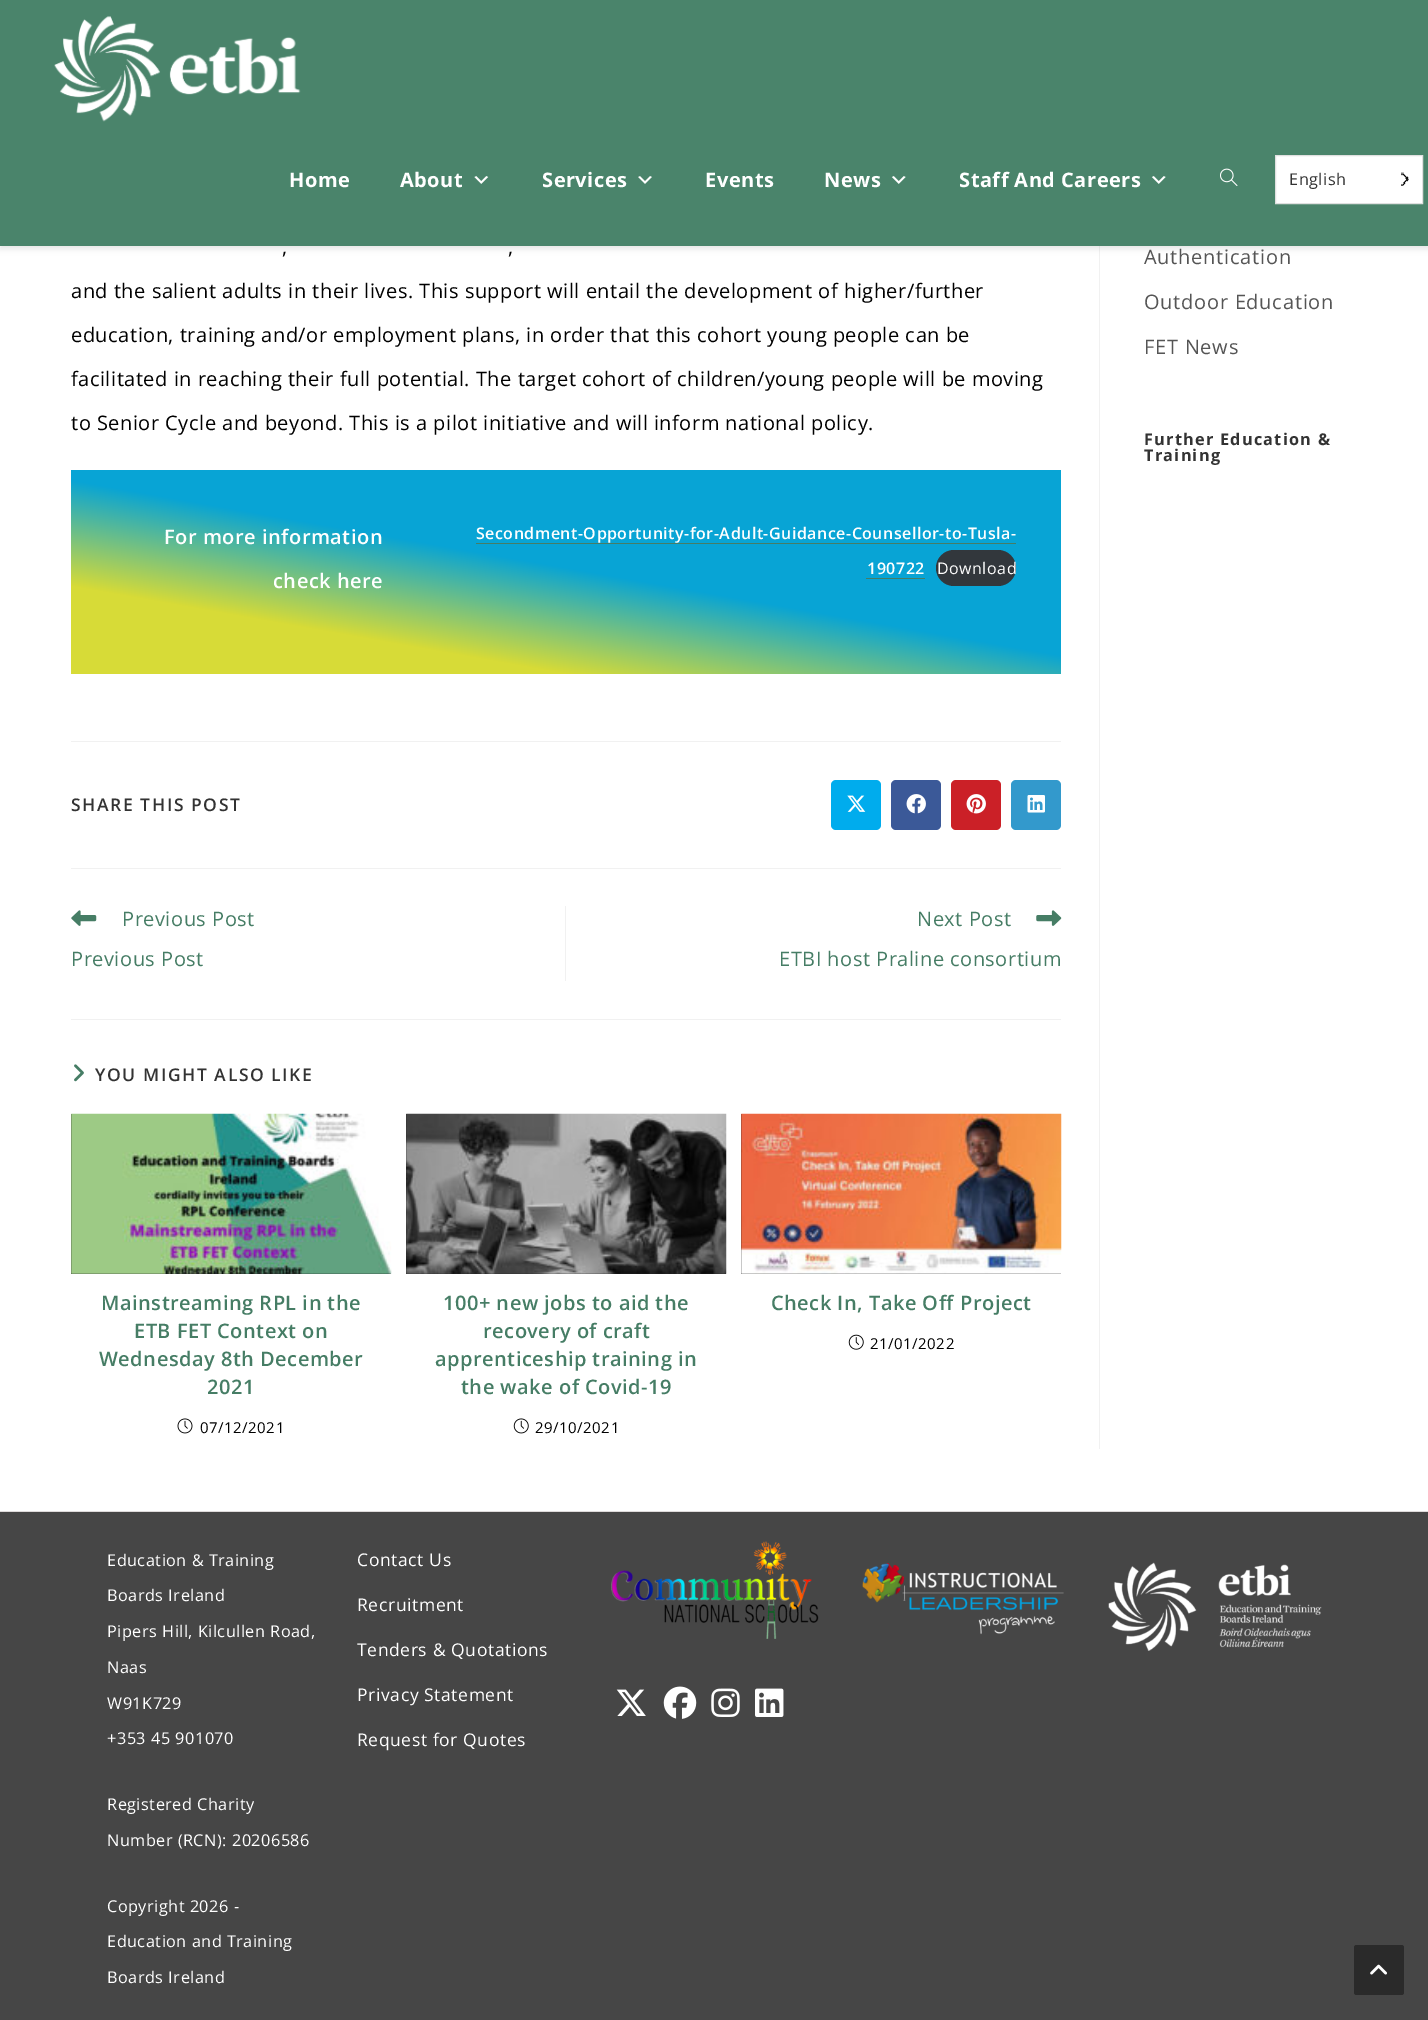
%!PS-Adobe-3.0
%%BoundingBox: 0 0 1428 2020
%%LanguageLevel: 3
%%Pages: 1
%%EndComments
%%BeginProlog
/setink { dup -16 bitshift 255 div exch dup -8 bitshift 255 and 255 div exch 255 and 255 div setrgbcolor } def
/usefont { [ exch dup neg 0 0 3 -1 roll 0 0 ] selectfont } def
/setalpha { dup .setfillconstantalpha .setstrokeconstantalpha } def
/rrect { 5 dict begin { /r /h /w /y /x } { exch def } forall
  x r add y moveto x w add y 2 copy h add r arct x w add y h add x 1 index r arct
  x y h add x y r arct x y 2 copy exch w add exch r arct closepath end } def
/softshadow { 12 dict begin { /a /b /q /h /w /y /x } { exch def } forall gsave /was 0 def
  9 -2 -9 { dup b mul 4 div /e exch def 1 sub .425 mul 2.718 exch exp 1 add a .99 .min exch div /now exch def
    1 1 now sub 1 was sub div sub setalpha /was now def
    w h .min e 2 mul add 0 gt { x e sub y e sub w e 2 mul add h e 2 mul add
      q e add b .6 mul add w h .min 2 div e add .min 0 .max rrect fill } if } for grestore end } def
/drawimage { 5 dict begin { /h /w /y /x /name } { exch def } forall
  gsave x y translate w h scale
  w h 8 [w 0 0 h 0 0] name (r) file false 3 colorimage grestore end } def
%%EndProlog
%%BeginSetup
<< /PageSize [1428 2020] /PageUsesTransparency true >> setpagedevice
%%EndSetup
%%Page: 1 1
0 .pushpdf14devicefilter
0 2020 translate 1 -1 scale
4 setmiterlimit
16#FFFFFF setink
0 0 1428 2020 rectfill
16#F1F1F1 setink
1099 246 1 1203 rectfill
16#000000 setink
0 3 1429 246 0 3 0.1 softshadow
16#4A846B setink
0 0 1428 246 rectfill
(img1.raw) 54 16 247 106 drawimage
/OpenSans-Bold 20 usefont
16#FFFFFF setink
289 187 moveto 0.5 0 (Home) ashow
400 187 moveto 0.5 0 (About) ashow
(img2.raw) 474 176 15 8 drawimage
542 187 moveto 0.5 0 (Services) ashow
(img3.raw) 638 176 14 8 drawimage
705 187 moveto 0.5 0 (Events) ashow
824 187 moveto 0.5 0 (News) ashow
(img4.raw) 891 176 15 8 drawimage
959 187 moveto 0.5 0 (Staff And Careers) ashow
(img4.raw) 1151 176 15 8 drawimage
(img5.raw) 1220 168 18 18 drawimage
1275.5 155.5 moveto 1422.5 155.5 lineto 1422.5 203.5 lineto 1275.5 203.5 lineto closepath gsave fill grestore
16#E0E0E0 setink
stroke
/OpenSans-Regular 16.25 usefont
16#333333 setink
1289 185 moveto 0.5 0 (English) ashow
(img6.raw) 1401 172 8 14 drawimage
/OpenSans-Regular 20 usefont
16#000000 setink
282 254 moveto 0.5 0 (,) ashow
508 254 moveto 0.5 0 (,) ashow
71 298 moveto 0.5 0 (and the salient adults in their lives. This support will entail the development of higher/further) ashow
71 342 moveto 0.5 0 (education, training and/or employment plans, in order that this cohort young people can be) ashow
71 386 moveto 0.5 0 (facilitated in reaching their full potential. The target cohort of children/young people will be moving) ashow
71 430 moveto 0.5 0 (to Senior Cycle and beyond. This is a pilot initiative and will inform national policy.) ashow
gsave 71 470 moveto 1061 470 lineto 1061 674 lineto 71 674 lineto closepath clip newpath
<< /ShadingType 2 /ColorSpace /DeviceRGB /Coords [534 755 599 388] /Extend [true true] /Function << /FunctionType 3 /Domain [0 1] /Functions [<< /FunctionType 2 /Domain [0 1] /C0 [0.843 0.859 0.216] /C1 [0.843 0.859 0.216] /N 1 >> << /FunctionType 2 /Domain [0 1] /C0 [0.843 0.859 0.216] /C1 [0.031 0.643 0.835] /N 1 >> << /FunctionType 2 /Domain [0 1] /C0 [0.031 0.643 0.835] /C1 [0.031 0.643 0.835] /N 1 >>] /Bounds [0.23 0.51] /Encode [0 1 0 1 0 1] >> >> shfill grestore
/OpenSans-SemiBold 20 usefont
16#FFFFFF setink
164 544 moveto 0.5 0 (For more information) ashow
273 588 moveto 0.5 0 (check here) ashow
/OpenSans-SemiBold 16 usefont
476 539 moveto 0.5 0 (Secondment-Opportunity-for-Adult-Guidance-Counsellor-to-Tusla-) ashow
16#467D65 setink
476 543 540 1 rectfill
16#FFFFFF setink
867 574 moveto 0.5 0 (190722) ashow
16#467D65 setink
866 578 59 1 rectfill
16#32373C setink
936 550 80 36 18 rrect fill
/OpenSans-Regular 16 usefont
16#FFFFFF setink
937 574 moveto 0.5 0 (Download) ashow
16#F1F1F1 setink
71 741 990 1 rectfill
/OpenSans-SemiBold 17.5 usefont
16#333333 setink
71 811 moveto 1.6 0 (SHARE THIS POST) ashow
16#00ACED setink
831 780 50 50 5 rrect fill
(img7.raw) 847 795 19 17 drawimage
16#3B5998 setink
891 780 50 50 5 rrect fill
(img8.raw) 906 794 20 20 drawimage
16#CB2027 setink
951 780 50 50 5 rrect fill
(img9.raw) 966 794 20 20 drawimage
16#3399CC setink
1011 780 50 50 5 rrect fill
(img10.raw) 1027 795 18 18 drawimage
16#F1F1F1 setink
71 868 990 1 rectfill
565 906 1 75 rectfill
(img11.raw) 71 910 26 16 drawimage
/OpenSans-Regular 20 usefont
16#467D65 setink
122 926 moveto 0.5 0 (Previous Post) ashow
71 966 moveto 0.5 0 (Previous Post) ashow
917 926 moveto 0.5 0 (Next Post) ashow
(img12.raw) 1036 910 26 16 drawimage
779 966 moveto 0.5 0 (ETBI host Praline consortium) ashow
16#F1F1F1 setink
71 1019 990 1 rectfill
(img13.raw) 74 1064 10 18 drawimage
/OpenSans-SemiBold 17.5 usefont
16#333333 setink
95 1081 moveto 1.6 0 (YOU MIGHT ALSO LIKE) ashow
16#222222 setink
71 1114 320 160 rectfill
(img14.raw) 71 1113 321 161 drawimage
/OpenSans-SemiBold 20 usefont
16#467D65 setink
101 1310 moveto 0.5 0 (Mainstreaming RPL in the) ashow
134 1338 moveto 0.5 0 (ETB FET Context on) ashow
99 1366 moveto 0.5 0 (Wednesday 8th December) ashow
207 1394 moveto 0.5 0 (2021) ashow
(img15.raw) 177 1418 16 16 drawimage
/OpenSans-Regular 15 usefont
16#000000 setink
200 1433 moveto 0.5 0 (07/12/2021) ashow
16#222222 setink
406 1114 320 160 rectfill
(img16.raw) 406 1113 321 161 drawimage
/OpenSans-SemiBold 20 usefont
16#467D65 setink
443 1310 moveto 0.5 0 (100+ new jobs to aid the) ashow
483 1338 moveto 0.5 0 (recovery of craft) ashow
435 1366 moveto 0.5 0 (apprenticeship training in) ashow
461 1394 moveto 0.5 0 (the wake of Covid-19) ashow
(img17.raw) 513 1418 16 16 drawimage
/OpenSans-Regular 15 usefont
16#000000 setink
535 1433 moveto 0.5 0 (29/10/2021) ashow
16#222222 setink
741 1114 320 160 rectfill
(img18.raw) 741 1113 321 161 drawimage
/OpenSans-SemiBold 20 usefont
16#467D65 setink
771 1310 moveto 0.5 0 (Check In, Take Off Project) ashow
(img19.raw) 848 1334 16 16 drawimage
/OpenSans-Regular 15 usefont
16#000000 setink
870 1349 moveto 0.5 0 (21/01/2022) ashow
/OpenSans-Regular 20 usefont
16#555555 setink
1144 264 moveto 0.75 0 (Authentication) ashow
1144 309 moveto 0.75 0 (Outdoor Education) ashow
1144 354 moveto 0.75 0 (FET News) ashow
/OpenSans-Bold 16.25 usefont
16#333333 setink
1144 445 moveto 1.25 0 (Further Education &) ashow
1144 461 moveto 1.25 0 (Training) ashow
16#464646 setink
0 1512 1428 508 rectfill
16#DEDADA setink
0 1511 1428 1 rectfill
/OpenSans-Regular 16.25 usefont
16#FFFFFF setink
107 1566 moveto 0.5 0 (Education & Training) ashow
107 1601 moveto 0.5 0 (Boards Ireland) ashow
107 1637 moveto 0.5 0 (Pipers Hill, Kilcullen Road,) ashow
107 1673 moveto 0.5 0 (Naas) ashow
107 1709 moveto 0.5 0 (W91K729) ashow
107 1744 moveto 0.5 0 (+353 45 901070) ashow
107 1810 moveto 0.5 0 (Registered Charity) ashow
107 1846 moveto 0.5 0 (Number \(RCN\): 20206586) ashow
107 1912 moveto 0.5 0 (Copyright 2026 -) ashow
107 1947 moveto 0.5 0 (Education and Training) ashow
107 1983 moveto 0.5 0 (Boards Ireland) ashow
/OpenSans-Regular 17.5 usefont
357 1566 moveto 0.6 0 (Contact Us) ashow
357 1611 moveto 0.6 0 (Recruitment) ashow
357 1656 moveto 0.6 0 (Tenders & Quotations) ashow
357 1701 moveto 0.6 0 (Privacy Statement) ashow
357 1746 moveto 0.6 0 (Request for Quotes) ashow
(img20.raw) 611 1541 208 98 drawimage
(img21.raw) 616 1689 30 27 drawimage
(img22.raw) 663 1686 34 33 drawimage
(img23.raw) 711 1688 29 29 drawimage
(img24.raw) 755 1688 29 29 drawimage
(img25.raw) 862 1563 202 72 drawimage
(img26.raw) 1108 1562 214 89 drawimage
16#2A2A2A setink
1354 1945 50 50 2.5 rrect fill
(img27.raw) 1370 1964 17 11 drawimage
.poppdf14devicefilter showpage
%%EOF
